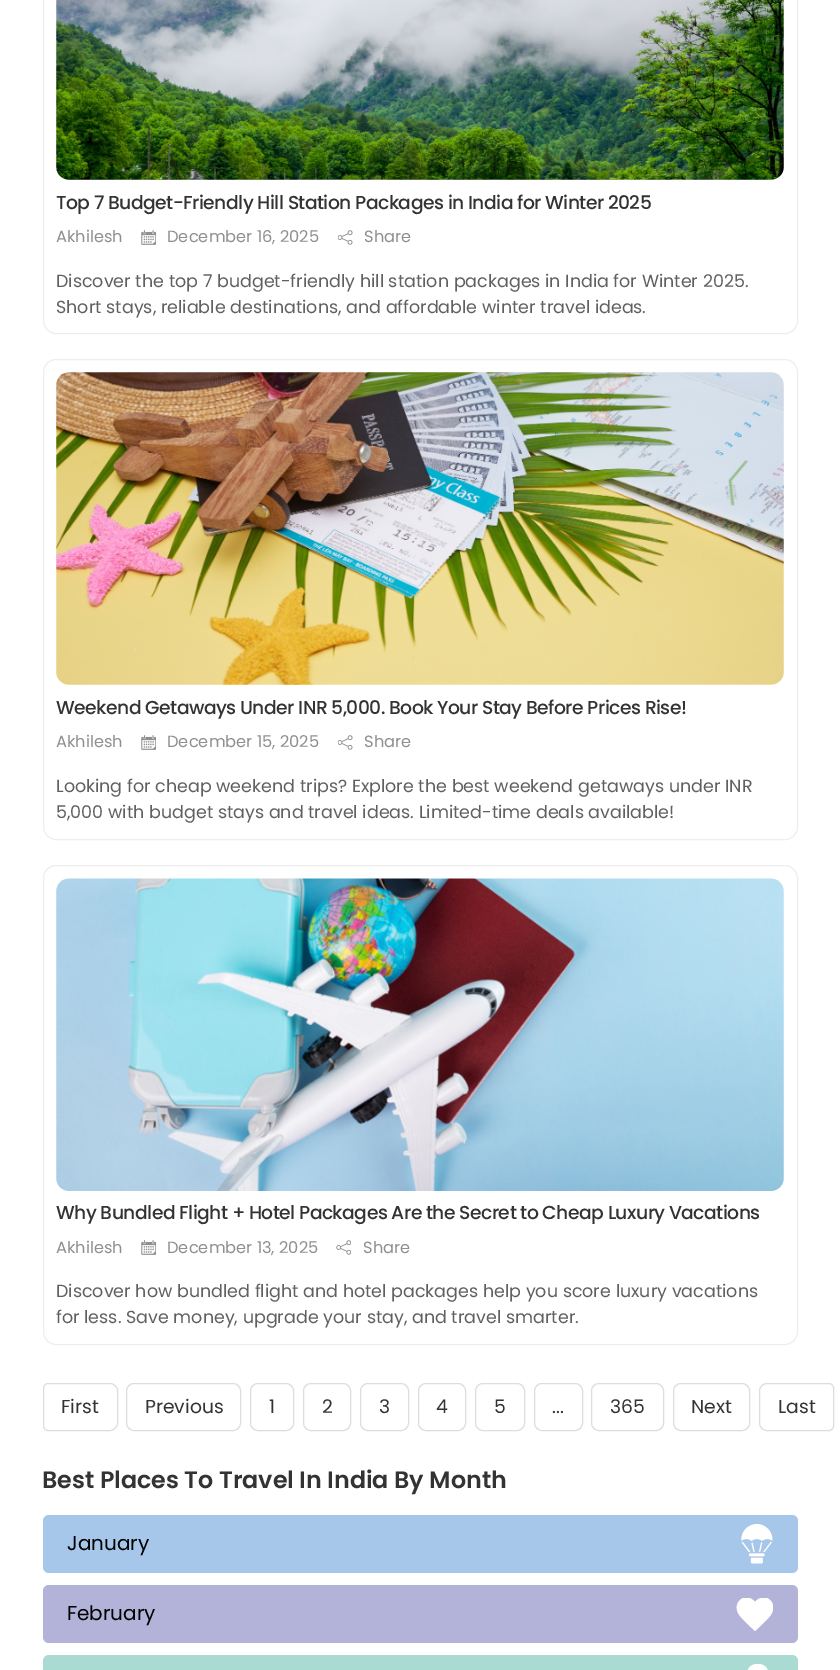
%!PS-Adobe-3.0
%%BoundingBox: 0 0 840 1670
%%LanguageLevel: 3
%%Pages: 1
%%EndComments
%%BeginProlog
/setink { dup -16 bitshift 255 div exch dup -8 bitshift 255 and 255 div exch 255 and 255 div setrgbcolor } def
/usefont { [ exch dup neg 0 0 3 -1 roll 0 0 ] selectfont } def
/rrect { 5 dict begin { /r /h /w /y /x } { exch def } forall
  x r add y moveto x w add y 2 copy h add r arct x w add y h add x 1 index r arct
  x y h add x y r arct x y 2 copy exch w add exch r arct closepath end } def
/drawimage { 5 dict begin { /h /w /y /x /name } { exch def } forall
  gsave x y translate w h scale
  w h 8 [w 0 0 h 0 0] name (r) file false 3 colorimage grestore end } def
%%EndProlog
%%BeginSetup
<< /PageSize [840 1670] >> setpagedevice
%%EndSetup
%%Page: 1 1
0 1670 translate 1 -1 scale
4 setmiterlimit
16#FFFFFF setink
0 0 840 1670 rectfill
16#EEEEEE setink
43.5 -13.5 754 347 12.5 rrect stroke
(img1.raw) 56 0 728 180 drawimage
/Poppins-Medium 18.75 usefont
16#333333 setink
56 209 moveto -0.55 0 (Top 7 Budget-Friendly Hill Station Packages in India for Winter 2025) ashow
/Poppins-Regular 16.25 usefont
16#8F8F8F setink
56 242 moveto (Akhilesh) show
(img2.raw) 141 230 15 15 drawimage
167 242 moveto (December 16, 2025) show
(img3.raw) 338 230 15 15 drawimage
364 242 moveto (Share) show
/Poppins-Regular 17.5 usefont
16#606060 setink
56 287 moveto (Discover the top 7 budget-friendly hill station packages in India for Winter 2025.) show
56 313 moveto (Short stays, reliable destinations, and affordable winter travel ideas.) show
16#EEEEEE setink
43.5 359.5 754 480 12.5 rrect stroke
(img4.raw) 56 372 728 313 drawimage
/Poppins-Medium 18.75 usefont
16#333333 setink
56 714 moveto -0.55 0 (Weekend Getaways Under INR 5,000. Book Your Stay Before Prices Rise!) ashow
/Poppins-Regular 16.25 usefont
16#8F8F8F setink
56 747 moveto (Akhilesh) show
(img2.raw) 141 735 15 15 drawimage
167 747 moveto (December 15, 2025) show
(img3.raw) 338 735 15 15 drawimage
364 747 moveto (Share) show
/Poppins-Regular 17.5 usefont
16#606060 setink
56 792 moveto (Looking for cheap weekend trips? Explore the best weekend getaways under INR) show
56 818 moveto (5,000 with budget stays and travel ideas. Limited-time deals available!) show
16#EEEEEE setink
43.5 865.5 754 479 12.5 rrect stroke
(img5.raw) 56 878 728 313 drawimage
/Poppins-Medium 18.75 usefont
16#333333 setink
56 1219 moveto -0.55 0 (Why Bundled Flight + Hotel Packages Are the Secret to Cheap Luxury Vacations) ashow
/Poppins-Regular 16.25 usefont
16#8F8F8F setink
56 1253 moveto (Akhilesh) show
(img2.raw) 141 1240 15 15 drawimage
167 1253 moveto (December 13, 2025) show
(img6.raw) 336 1240 15 15 drawimage
363 1253 moveto (Share) show
/Poppins-Regular 17.5 usefont
16#606060 setink
56 1297 moveto (Discover how bundled flight and hotel packages help you score luxury vacations) show
56 1323 moveto (for less. Save money, upgrade your stay, and travel smarter.) show
16#DDDDDD setink
48 1383.5 moveto 110 1383.5 lineto 114 1383.5 117.5 1387 117.5 1391 curveto 117.5 1423 lineto 117.5 1427 114 1430.5 110 1430.5 curveto 48 1430.5 lineto 45.5 1430.5 43.5 1428.5 43.5 1426 curveto 43.5 1388 lineto 43.5 1385.5 45.5 1383.5 48 1383.5 curveto closepath stroke
/Poppins-Regular 18.75 usefont
16#333333 setink
61 1413 moveto (First) show
16#DDDDDD setink
126.5 1383.5 114 47 7.5 rrect stroke
16#333333 setink
145 1413 moveto (Previous) show
16#DDDDDD setink
250.5 1383.5 43 47 7.5 rrect stroke
16#333333 setink
269 1413 moveto (1) show
16#DDDDDD setink
303.5 1383.5 47 47 7.5 rrect stroke
16#333333 setink
322 1413 moveto (2) show
16#DDDDDD setink
360.5 1383.5 48 47 7.5 rrect stroke
16#333333 setink
379 1413 moveto (3) show
16#DDDDDD setink
418.5 1383.5 47 47 7.5 rrect stroke
16#333333 setink
436 1413 moveto (4) show
16#DDDDDD setink
475.5 1383.5 49 47 7.5 rrect stroke
16#333333 setink
494 1413 moveto (5) show
16#DDDDDD setink
534.5 1383.5 48 47 7.5 rrect stroke
16#333333 setink
552 1413 moveto (...) show
16#DDDDDD setink
591.5 1383.5 72 47 7.5 rrect stroke
16#333333 setink
610 1413 moveto (365) show
16#DDDDDD setink
673.5 1383.5 76 47 7.5 rrect stroke
16#333333 setink
691 1413 moveto (Next) show
16#DDDDDD setink
767 1383.5 moveto 829 1383.5 lineto 831.5 1383.5 833.5 1385.5 833.5 1388 curveto 833.5 1426 lineto 833.5 1428.5 831.5 1430.5 829 1430.5 curveto 767 1430.5 lineto 763 1430.5 759.5 1427 759.5 1423 curveto 759.5 1391 lineto 759.5 1387 763 1383.5 767 1383.5 curveto closepath stroke
16#333333 setink
778 1413 moveto (Last) show
/Poppins-SemiBold 23.75 usefont
42 1488 moveto (Best Places To Travel In India By Month) show
16#A6C7EA setink
43 1515 755 58 6 rrect fill
/Poppins-Regular 20 usefont
16#000000 setink
67 1550 moveto (January) show
(img7.raw) 741 1524 32 40 drawimage
16#B3B3D9 setink
43 1585 755 58 6 rrect fill
16#000000 setink
67 1620 moveto (February) show
gsave
736 1598 37 33 rectclip
16#FFFFFF setink
755 1602 moveto 745 1590 730 1604 740 1616 curveto 743 1620 755 1631 755 1631 curveto 755 1631 767 1620 770 1616 curveto 780 1604 765 1590 755 1602 curveto closepath fill
grestore
16#A9DBD2 setink
43 1655 755 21 6 rrect fill
(img8.raw) 747 1664 21 6 drawimage
showpage
%%EOF
